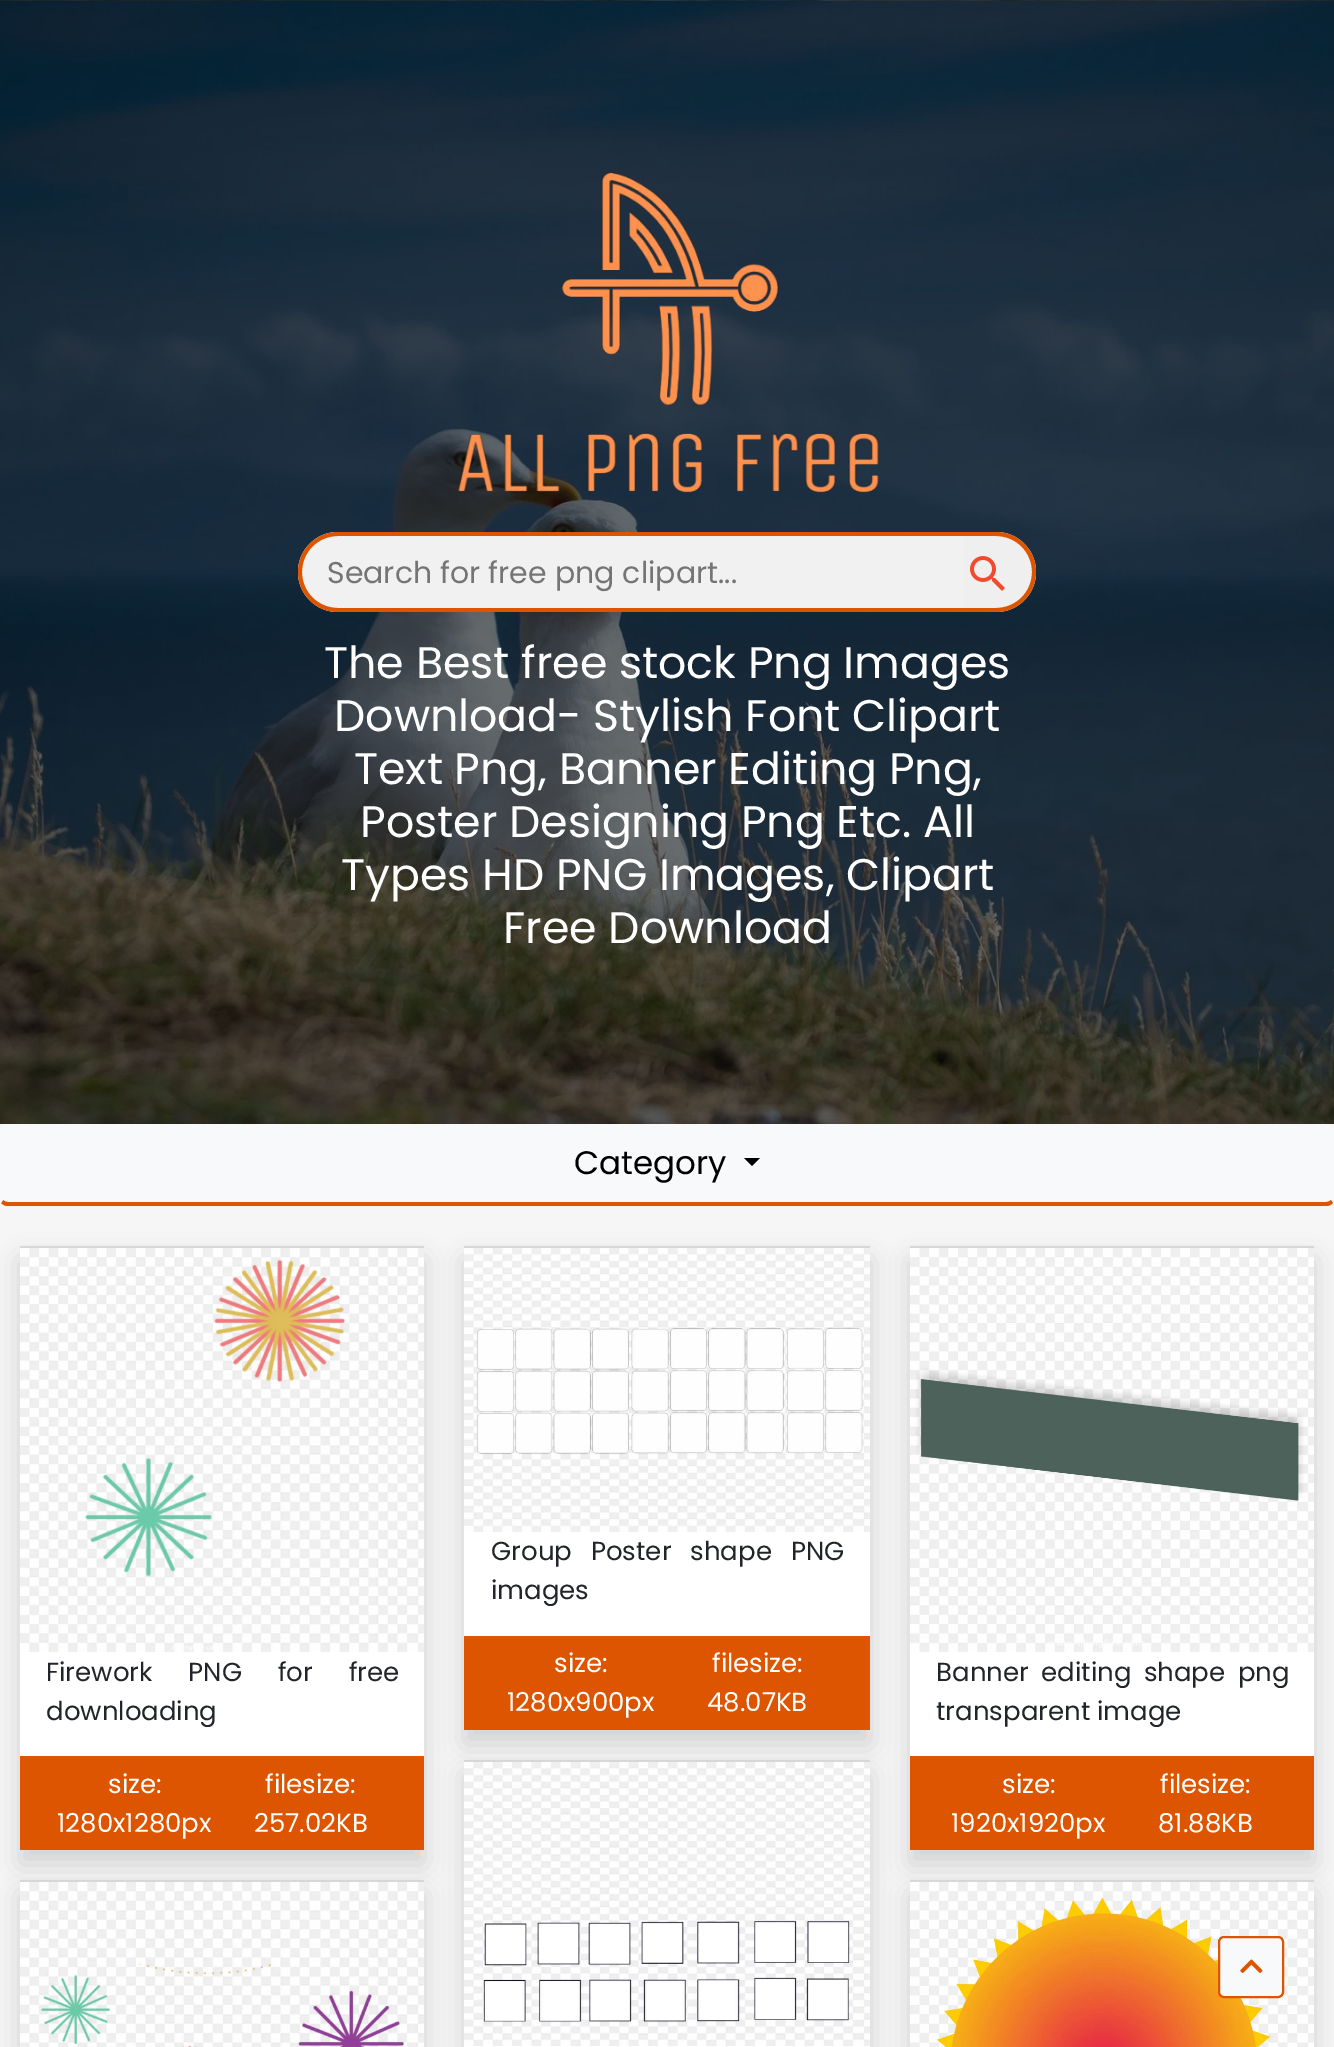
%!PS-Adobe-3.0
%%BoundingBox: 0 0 1334 2047
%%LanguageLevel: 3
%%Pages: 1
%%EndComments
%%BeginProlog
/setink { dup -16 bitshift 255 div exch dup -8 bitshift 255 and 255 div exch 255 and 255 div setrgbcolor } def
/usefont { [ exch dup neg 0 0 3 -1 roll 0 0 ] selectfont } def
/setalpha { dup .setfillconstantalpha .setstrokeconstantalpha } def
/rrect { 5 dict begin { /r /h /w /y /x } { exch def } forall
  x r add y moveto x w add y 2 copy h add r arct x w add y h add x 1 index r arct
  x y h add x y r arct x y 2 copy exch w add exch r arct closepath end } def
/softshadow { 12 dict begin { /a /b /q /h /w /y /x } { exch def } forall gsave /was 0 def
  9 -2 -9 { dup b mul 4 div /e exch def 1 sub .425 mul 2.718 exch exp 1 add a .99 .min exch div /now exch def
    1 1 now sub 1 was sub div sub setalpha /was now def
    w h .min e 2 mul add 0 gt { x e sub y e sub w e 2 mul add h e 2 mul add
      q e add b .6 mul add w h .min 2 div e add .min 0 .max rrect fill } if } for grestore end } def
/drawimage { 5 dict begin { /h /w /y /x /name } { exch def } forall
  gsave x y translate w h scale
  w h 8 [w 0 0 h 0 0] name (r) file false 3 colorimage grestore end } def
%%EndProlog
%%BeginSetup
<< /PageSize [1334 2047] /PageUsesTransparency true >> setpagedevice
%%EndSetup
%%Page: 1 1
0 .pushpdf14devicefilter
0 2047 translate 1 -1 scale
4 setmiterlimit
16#F6F6F6 setink
0 0 1334 2047 rectfill
(img1.raw) 0 0 1334 1124 drawimage
(img2.raw) 457 172 422 321 drawimage
16#F1F1F1 setink
338 532 moveto 964 532 lineto 964 612 lineto 338 612 lineto 316 612 298 594 298 572 curveto 298 550 316 532 338 532 curveto closepath fill
16#DD5500 setink
338 532 moveto 964 532 lineto 964 612 lineto 338 612 lineto 316 612 298 594 298 572 curveto 298 550 316 532 338 532 curveto closepath 338 536 moveto 964 536 lineto 964 608 lineto 338 608 lineto 318 608 302 592 302 572 curveto 302 552 318 536 338 536 curveto closepath eofill
/Poppins-Regular 30 usefont
16#757575 setink
327 583 moveto (Search for free png clipart...) show
16#EFEFEF setink
964 532 moveto 996 532 lineto 1018 532 1036 550 1036 572 curveto 1036 594 1018 612 996 612 curveto 964 612 lineto closepath fill
16#DD5500 setink
964 532 moveto 996 532 lineto 1018 532 1036 550 1036 572 curveto 1036 594 1018 612 996 612 curveto 964 612 lineto closepath 964 536 moveto 996 536 lineto 1016 536 1032 552 1032 572 curveto 1032 592 1016 608 996 608 curveto 964 608 lineto closepath eofill
(img3.raw) 970 556 35 35 drawimage
/Poppins-Regular 44.25 usefont
16#FFFFFF setink
[
    [(The Best free stock Png Images) 324 678]
    [(Download- Stylish Font Clipart) 334 731]
    [(Text Png, Banner Editing Png,) 354 784]
    [(Poster Designing Png Etc. All) 360 837]
    [(Types HD PNG Images, Clipart) 341 890]
    [(Free Download) 503 943]
] { aload pop moveto show } forall
16#F8F9FA setink
8 1126 moveto 1326 1126 lineto 1329 1126 1332 1129 1332 1132 curveto 1332 1198 lineto 1332 1200 1329 1202 1326 1202 curveto 8 1202 lineto 5 1202 2 1200 2 1198 curveto 2 1132 lineto 2 1129 5 1126 8 1126 curveto closepath fill
8 1124 moveto 6 1124 4 1125 2 1126 curveto 4 1128 lineto 5 1127 6 1126 8 1126 curveto 1326 1126 lineto 1328 1126 1329 1127 1330 1128 curveto 1332 1126 lineto 1330 1125 1328 1124 1326 1124 curveto closepath fill
1334 1198 moveto 1334 1132 lineto 1334 1130 1333 1128 1332 1126 curveto 1330 1128 lineto 1332 1131 lineto 1332 1198 lineto 1331 1200 lineto 1333 1203 lineto 1333 1202 1334 1200 1334 1198 curveto closepath fill
16#DD5500 setink
8 1206 moveto 1326 1206 lineto 1329 1206 1331 1205 1333 1203 curveto 1331 1200 lineto 1330 1201 1328 1202 1326 1202 curveto 8 1202 lineto 6 1202 4 1201 3 1200 curveto 1 1203 lineto 3 1205 5 1206 8 1206 curveto closepath fill
16#F8F9FA setink
0 1132 moveto 0 1198 lineto 0 1200 1 1202 1 1203 curveto 3 1200 lineto 2 1198 lineto 2 1131 lineto 4 1128 lineto 2 1126 lineto 1 1128 0 1130 0 1132 curveto closepath fill
/Poppins-Regular 32.5 usefont
16#000000 setink
574 1174 moveto (Category) show
744 1158 moveto 760 1158 lineto 752 1166 lineto closepath fill
464 1260 406 484 0 13 0.15 softshadow
16#FFFFFF setink
464 1532 406 104 rectfill
16#D8D7D7 setink
464 1246 406 2 rectfill
(img4.raw) 464 1248 406 284 drawimage
/Poppins-Regular 26 usefont
16#212529 setink
491 1560 moveto 12 0 32 (Group Poster shape PNG) widthshow
491 1599 moveto (images) show
16#DD5500 setink
464 1636 406 94 rectfill
16#FFFFFF setink
[
    [(size:) 554 1672]
    [(1280x900px) 507 1711]
    [(filesize:) 712 1672]
    [(48.07KB) 707 1711]
] { aload pop moveto show } forall
16#000000 setink
20 1260 404 604 0 13 0.15 softshadow
16#FFFFFF setink
20 1652 404 104 rectfill
16#D8D7D7 setink
20 1246 404 2 rectfill
(img5.raw) 20 1248 404 404 drawimage
16#212529 setink
46 1681 moveto 29 0 32 (Firework PNG for free) widthshow
46 1720 moveto (downloading) show
16#DD5500 setink
20 1756 404 94 rectfill
16#FFFFFF setink
[
    [(size:) 108 1793]
    [(1280x1280px) 57 1832]
    [(filesize:) 265 1793]
    [(257.02KB) 254 1832]
] { aload pop moveto show } forall
16#000000 setink
464 1774 406 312 0 13 0.15 softshadow
16#FFFFFF setink
464 2046 406 1 rectfill
16#D8D7D7 setink
464 1760 406 2 rectfill
(img6.raw) 464 1762 406 284 drawimage
16#000000 setink
910 1260 404 604 0 13 0.15 softshadow
16#FFFFFF setink
910 1652 404 104 rectfill
16#D8D7D7 setink
910 1246 404 2 rectfill
(img7.raw) 910 1248 404 404 drawimage
16#212529 setink
936 1681 moveto 5.5 0 32 (Banner editing shape png) widthshow
936 1720 moveto (transparent image) show
16#DD5500 setink
910 1756 404 94 rectfill
16#FFFFFF setink
[
    [(size:) 1002 1793]
    [(1920x1920px) 951 1832]
    [(filesize:) 1160 1793]
    [(81.88KB) 1158 1832]
] { aload pop moveto show } forall
16#000000 setink
20 1894 404 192 0 13 0.15 softshadow
16#D8D7D7 setink
20 1880 404 2 rectfill
(img8.raw) 20 1882 404 165 drawimage
16#000000 setink
910 1894 404 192 0 13 0.15 softshadow
16#D8D7D7 setink
910 1880 404 2 rectfill
(img9.raw) 910 1882 404 165 drawimage
16#F8F9FA setink
1219 1937 64 60 5 rrect gsave fill grestore
16#DD5500 setink
2 setlinewidth
stroke
(img10.raw) 1240 1959 23 14 drawimage
.poppdf14devicefilter showpage
%%EOF
